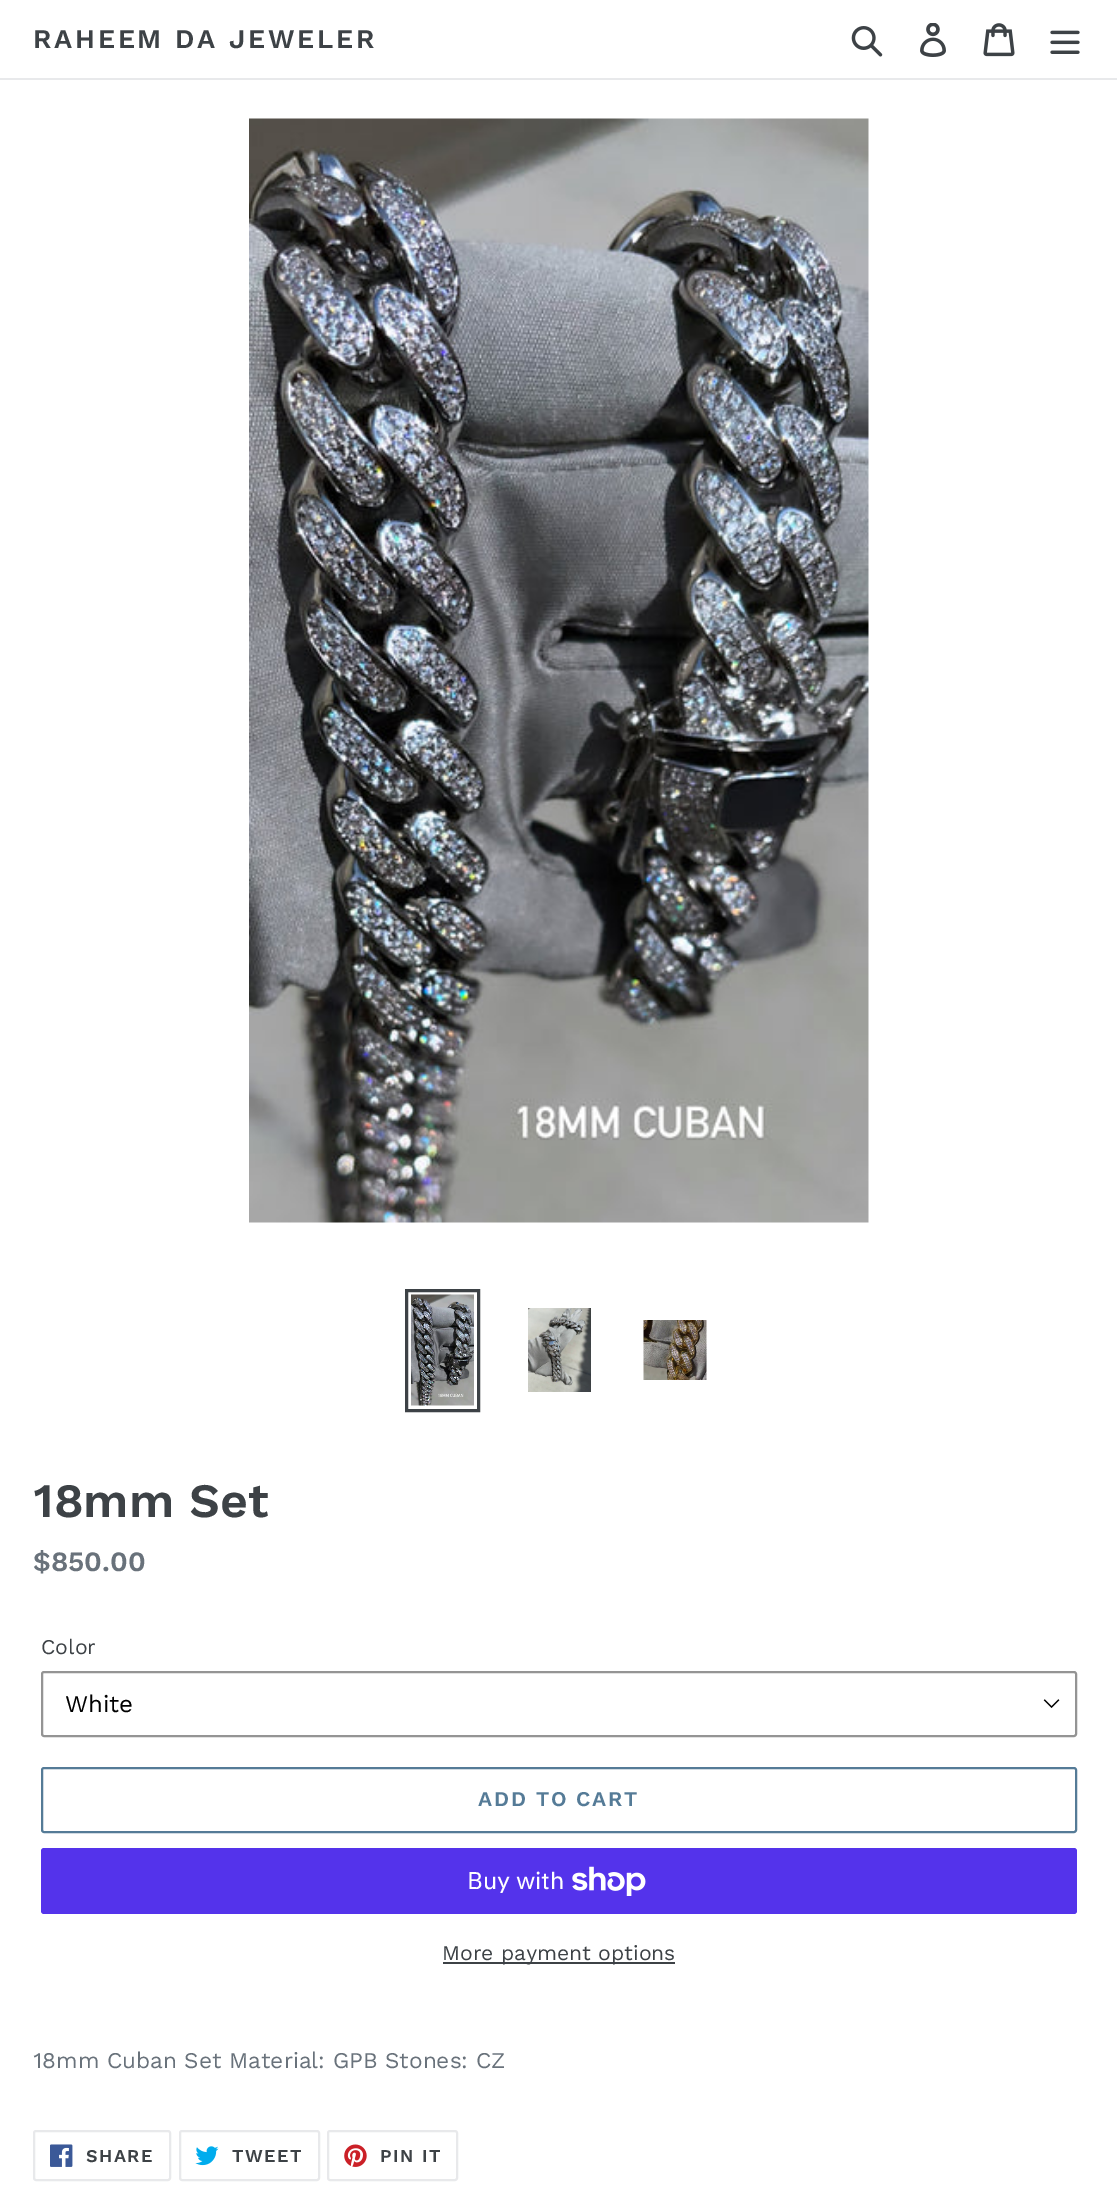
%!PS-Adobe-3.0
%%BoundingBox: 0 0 1117 2208
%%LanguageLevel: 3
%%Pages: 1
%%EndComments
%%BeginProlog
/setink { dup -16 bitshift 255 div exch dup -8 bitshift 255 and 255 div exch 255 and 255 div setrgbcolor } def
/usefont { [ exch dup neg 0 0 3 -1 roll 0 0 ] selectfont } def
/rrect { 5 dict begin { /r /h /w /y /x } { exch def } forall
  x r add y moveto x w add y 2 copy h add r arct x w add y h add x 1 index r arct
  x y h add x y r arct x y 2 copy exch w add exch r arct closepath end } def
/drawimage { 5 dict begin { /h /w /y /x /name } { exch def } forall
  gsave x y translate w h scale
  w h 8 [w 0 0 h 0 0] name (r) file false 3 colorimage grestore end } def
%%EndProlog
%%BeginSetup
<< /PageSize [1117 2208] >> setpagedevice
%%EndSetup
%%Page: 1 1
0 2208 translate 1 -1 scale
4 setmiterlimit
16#FFFFFF setink
0 0 1117 2208 rectfill
16#E8E9EB setink
0 78 1117 2 rectfill
/WorkSans-SemiBold 27 usefont
16#3D4246 setink
33 48 moveto 2.75 0 (RAHEEM DA JEWELER) ashow
(img1.raw) 851 26 32 31 drawimage
(img2.raw) 920 23 26 34 drawimage
(img3.raw) 983 23 32 34 drawimage
(img4.raw) 1050 30 30 24 drawimage
(img5.raw) 249 118 620 1105 drawimage
3 setlinewidth
406.5 1290.5 72 120 rectstroke
(img6.raw) 411 1294 63 112 drawimage
(img7.raw) 528 1308 63 84 drawimage
(img8.raw) 643 1320 64 60 drawimage
/WorkSans-SemiBold 48 usefont
33 1517 moveto (18mm Set) show
/WorkSans-SemiBold 28 usefont
16#69727B setink
33 1571 moveto ($850.00) show
/WorkSans-Regular 21 usefont
16#3D4246 setink
41 1654 moveto (Color) show
(img9.raw) 1043 1699 17 9 drawimage
16#949494 setink
2 setlinewidth
42 1672 1034 64 2 rrect stroke
/WorkSans-Regular 24 usefont
16#000000 setink
65 1712 moveto (White) show
16#557B97 setink
42 1768 1034 64 2 rrect stroke
/WorkSans-SemiBold 21 usefont
478 1806 moveto 1.75 0 (ADD TO CART) ashow
16#5433EB setink
41 1848 1036 66 3 rrect fill
/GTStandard-Regular 24 usefont
16#FFFFFF setink
467 1889 moveto (Buy with) show
(img10.raw) 572 1866 74 30 drawimage
16#3D4246 setink
443 1962 232 2 rectfill
/WorkSans-Regular 21 usefont
442 1960 moveto (More payment options) show
/WorkSans-Regular 22.5 usefont
16#69727B setink
33 2068 moveto (18mm Cuban Set Material: GPB Stones: CZ) show
16#E8E9EB setink
34 2131 136 49 2 rrect stroke
(img11.raw) 50 2144 23 23 drawimage
/WorkSans-SemiBold 18 usefont
16#3D4246 setink
86 2162 moveto 1.5 0 (SHARE) ashow
16#E8E9EB setink
180 2131 139 49 2 rrect stroke
(img12.raw) 195 2146 24 20 drawimage
16#3D4246 setink
232 2162 moveto 1.5 0 (TWEET) ashow
16#E8E9EB setink
328 2131 129 49 2 rrect stroke
(img13.raw) 344 2144 23 23 drawimage
16#3D4246 setink
380 2162 moveto 1.5 0 (PIN IT) ashow
showpage
%%EOF
